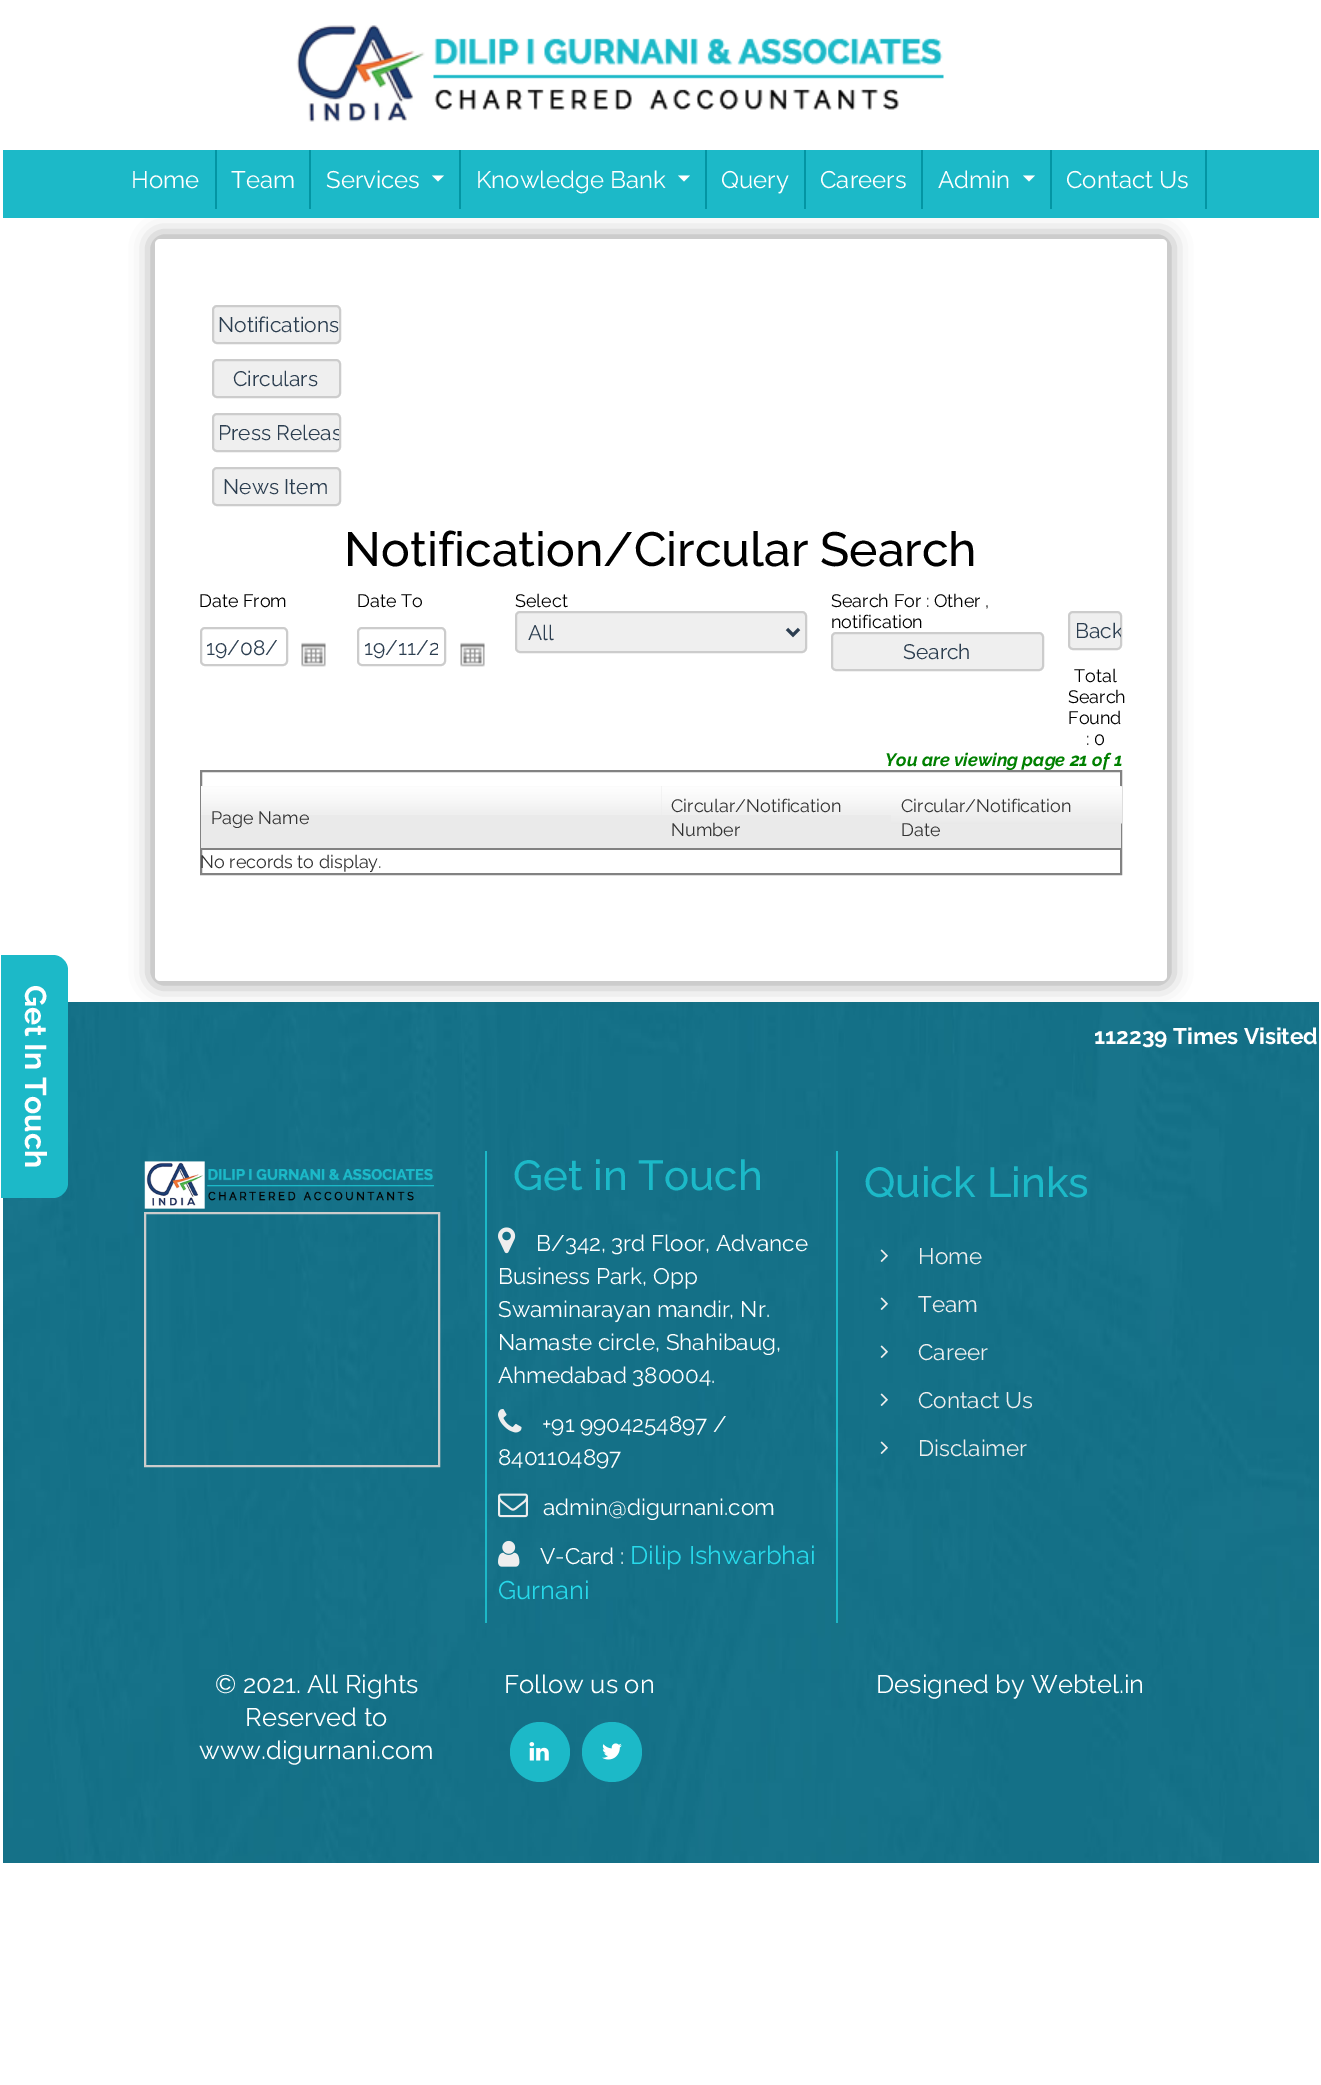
%!PS-Adobe-3.0
%%BoundingBox: 0 0 1321 2085
%%LanguageLevel: 3
%%Pages: 1
%%EndComments
%%BeginProlog
/setink { dup -16 bitshift 255 div exch dup -8 bitshift 255 and 255 div exch 255 and 255 div setrgbcolor } def
/usefont { [ exch dup neg 0 0 3 -1 roll 0 0 ] selectfont } def
/setalpha { dup .setfillconstantalpha .setstrokeconstantalpha } def
/disc { newpath 0 360 arc closepath } def
/rrect { 5 dict begin { /r /h /w /y /x } { exch def } forall
  x r add y moveto x w add y 2 copy h add r arct x w add y h add x 1 index r arct
  x y h add x y r arct x y 2 copy exch w add exch r arct closepath end } def
/softshadow { 12 dict begin { /a /b /q /h /w /y /x } { exch def } forall gsave /was 0 def
  9 -2 -9 { dup b mul 4 div /e exch def 1 sub .425 mul 2.718 exch exp 1 add a .99 .min exch div /now exch def
    1 1 now sub 1 was sub div sub setalpha /was now def
    w h .min e 2 mul add 0 gt { x e sub y e sub w e 2 mul add h e 2 mul add
      q e add b .6 mul add w h .min 2 div e add .min 0 .max rrect fill } if } for grestore end } def
/drawimage { 5 dict begin { /h /w /y /x /name } { exch def } forall
  gsave x y translate w h scale
  w h 8 [w 0 0 h 0 0] name (r) file false 3 colorimage grestore end } def
%%EndProlog
%%BeginSetup
<< /PageSize [1321 2085] /PageUsesTransparency true >> setpagedevice
%%EndSetup
%%Page: 1 1
0 .pushpdf14devicefilter
0 2085 translate 1 -1 scale
4 setmiterlimit
16#FFFFFF setink
0 0 1321 2085 rectfill
(img6.raw) 3 1002 1316 861 drawimage
16#000000 setink
153 237 1016 746 6 11 0.4 softshadow
16#1CB9C8 setink
3 150 1316 68 rectfill
16#0395A3 setink
215 150 2 59 rectfill
/Raleway-Regular 24 usefont
16#FFFFFF setink
131 188 moveto (Home) show
16#0395A3 setink
309 150 2 59 rectfill
16#FFFFFF setink
231 188 moveto (Team) show
16#0395A3 setink
459 150 2 59 rectfill
16#FFFFFF setink
326 188 moveto (Services) show
432 175.5 moveto 444 175.5 lineto 438 181.5 lineto closepath fill
16#0395A3 setink
705 150 2 59 rectfill
16#FFFFFF setink
476 188 moveto (Knowledge Bank) show
678 175.5 moveto 690 175.5 lineto 684 181.5 lineto closepath fill
16#0395A3 setink
804 150 2 59 rectfill
16#FFFFFF setink
721 188 moveto (Query) show
16#0395A3 setink
921 150 2 59 rectfill
16#FFFFFF setink
820 188 moveto (Careers) show
16#0395A3 setink
1050 150 2 59 rectfill
16#FFFFFF setink
938 188 moveto (Admin) show
1023 175.5 moveto 1035 175.5 lineto 1029 181.5 lineto closepath fill
16#0395A3 setink
1205 150 2 59 rectfill
16#FFFFFF setink
1066 188 moveto (Contact Us) show
(img1.raw) 296 25 648 97 drawimage
16#1CB9C8 setink
68 970 moveto 68 1183 lineto 68 1191 61 1198 53 1198 curveto 1 1198 lineto 1 955 lineto 53 955 lineto 61 955 68 962 68 970 curveto closepath fill
/Raleway-Bold 30 usefont
16#FFFFFF setink
gsave 25 985 translate 90 rotate 0 0 moveto (Get In Touch) show grestore
155 239 1012 742 5 rrect fill
16#EFEFEF setink
213 306 127 37 4 rrect gsave fill grestore
16#CCCCCC setink
2 setlinewidth
stroke
/Raleway-Regular 21 usefont
16#2C3E50 setink
218 332 moveto (Notifications) show
16#EFEFEF setink
213 360 127 37 4 rrect gsave fill grestore
16#CCCCCC setink
stroke
16#2C3E50 setink
233 386 moveto (Circulars) show
16#EFEFEF setink
213 414 127 37 4 rrect gsave fill grestore
16#CCCCCC setink
stroke
gsave
213 414 126 36 3 rrect clip newpath
16#2C3E50 setink
218 440 moveto (Press Releas) show
grestore
16#EFEFEF setink
213 468 127 37 4 rrect gsave fill grestore
16#CCCCCC setink
stroke
16#2C3E50 setink
223 494 moveto (News Item) show
/Raleway-Medium 48 usefont
16#000000 setink
344 566 moveto (Notification/Circular Search) show
/Raleway-Regular 18 usefont
199 607 moveto (Date From) show
16#CCCCCC setink
201 628 86 37 4 rrect stroke
/Raleway-Regular 21 usefont
16#2C3E50 setink
206 655 moveto (19/08/) show
(img2.raw) 301 642 25 25 drawimage
/Raleway-Regular 18 usefont
16#000000 setink
357 607 moveto (Date To) show
16#CCCCCC setink
358 628 87 37 4 rrect stroke
gsave
365 635 73 24 rectclip
/Raleway-Regular 21 usefont
16#2C3E50 setink
364 655 moveto (19/11/2) show
grestore
(img2.raw) 460 642 25 25 drawimage
16#000000 setink
515 607 moveto (Select) show
16#EFEFEF setink
516 612 290 40 4 rrect gsave fill grestore
16#CCCCCC setink
stroke
16#2C3E50 setink
3 setlinewidth
787 629 moveto 793 635 lineto 799 629 lineto stroke
/Raleway-Regular 21 usefont
528 640 moveto (All) show
/Raleway-Regular 18 usefont
16#000000 setink
831 607 moveto (Search For : Other ,) show
831 628 moveto (notification) show
16#EFEFEF setink
832 633 211 37 4 rrect gsave fill grestore
16#CCCCCC setink
2 setlinewidth
stroke
/Raleway-Regular 21 usefont
16#2C3E50 setink
903 659 moveto (Search) show
16#EFEFEF setink
1069 612 52 37 4 rrect gsave fill grestore
16#CCCCCC setink
stroke
gsave
1070 612 51 36 3 rrect clip newpath
16#2C3E50 setink
1075 638 moveto (Back) show
grestore
/Raleway-Regular 18 usefont
16#000000 setink
[
    [(Total) 1074 682]
    [(Search) 1068 703]
    [(Found) 1068 724]
    [(: 0) 1086 745]
] { aload pop moveto show } forall
/Raleway-BoldItalic 18 usefont
16#008000 setink
885 766 moveto (You are viewing page 21 of 1) show
16#828282 setink
201 771 920 103 rectstroke
16#EAEAEA setink
201 786 920 62 rectfill
(img3.raw) 201 786 461 29 drawimage
16#828282 setink
201 848 920 2 rectfill
/Raleway-Regular 18 usefont
16#333333 setink
211 824 moveto (Page Name) show
(img4.raw) 662 786 229 29 drawimage
671 812 moveto (Circular/Notification) show
671 836 moveto (Number) show
(img5.raw) 891 786 231 38 drawimage
[
    [(Circular/Notification) 901 812]
    [(Date) 901 836]
    [(No records to display.) 200 868]
] { aload pop moveto show } forall
/Raleway-Bold 22.5 usefont
16#FFFFFF setink
1094 1044 moveto (112239) show
1173 1044 moveto (Times Visited) show
(img7.raw) 144 1161 290 48 drawimage
16#CCCCCC setink
145 1213 294 253 rectstroke
16#1CB9C8 setink
836 1151 2 472 rectfill
485 1151 2 472 rectfill
/Raleway-Medium 42 usefont
513 1190 moveto (Get in Touch) show
(img8.raw) 498 1227 18 27 drawimage
/Raleway-Regular 22.5 usefont
16#FFFFFF setink
[
    [(B/342, 3rd Floor, Advance) 536 1251]
    [(Business Park, Opp) 498 1284]
    [(Swaminarayan mandir, Nr.) 498 1317]
    [(Namaste circle, Shahibaug,) 498 1350]
    [(Ahmedabad 380004.) 498 1383]
] { aload pop moveto show } forall
(img9.raw) 498 1409 24 24 drawimage
542 1432 moveto (+91 9904254897 /) show
498 1465 moveto (8401104897) show
(img10.raw) 498 1493 30 25 drawimage
543 1515 moveto (admin@digurnani.com) show
(img11.raw) 498 1540 22 27 drawimage
540 1564 moveto (V-Card :) show
/Raleway-Regular 25.5 usefont
16#27D9EA setink
630 1564 moveto (Dilip Ishwarbhai) show
498 1599 moveto (Gurnani) show
/Raleway-Medium 42 usefont
16#1CB9C8 setink
864 1197 moveto (Quick Links) show
(img12.raw) 880 1249 8 13 drawimage
/Raleway-Regular 22.5 usefont
16#EEEEEE setink
918 1264 moveto (Home) show
(img13.raw) 880 1297 8 13 drawimage
918 1312 moveto (Team) show
(img14.raw) 880 1345 8 13 drawimage
918 1360 moveto (Career) show
(img15.raw) 880 1393 8 13 drawimage
918 1408 moveto (Contact Us) show
(img16.raw) 880 1441 8 13 drawimage
918 1456 moveto (Disclaimer) show
/Raleway-Regular 25.5 usefont
16#FFFFFF setink
[
    [(© 2021. All Rights) 215 1693]
    [(Reserved to) 245 1726]
    [(www.digurnani.com) 199 1759]
    [(Follow us on) 504 1693]
] { aload pop moveto show } forall
16#1CB9C8 setink
540 1752 30 disc fill
(img17.raw) 529 1742 20 19 drawimage
612 1752 30 disc fill
(img18.raw) 602 1743 20 17 drawimage
16#FFFFFF setink
876 1693 moveto (Designed by Webtel.in) show
.poppdf14devicefilter showpage
%%EOF
